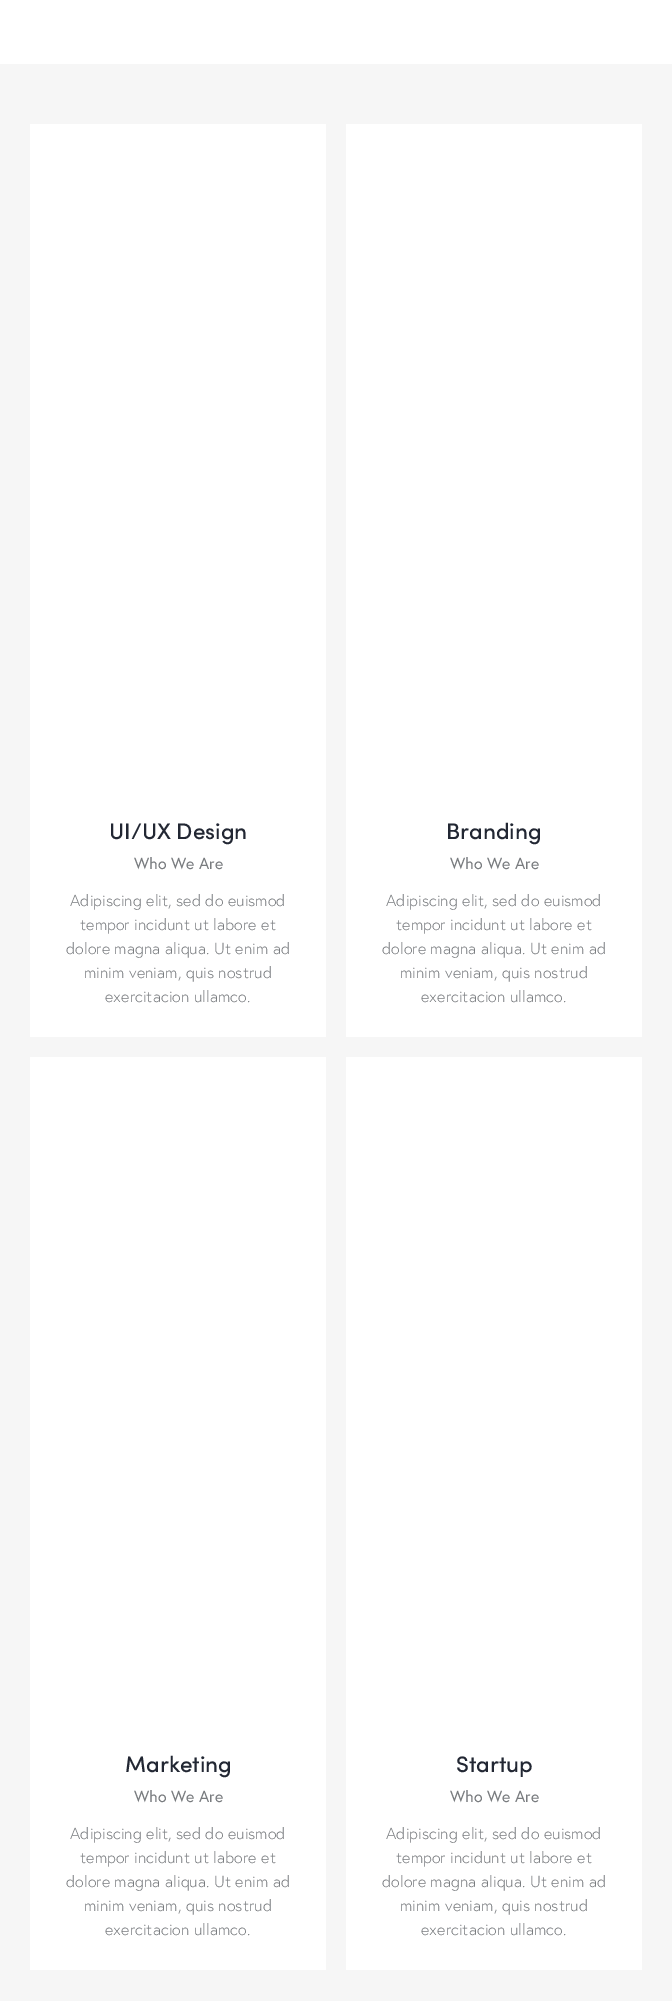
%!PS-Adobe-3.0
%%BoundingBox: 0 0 672 2001
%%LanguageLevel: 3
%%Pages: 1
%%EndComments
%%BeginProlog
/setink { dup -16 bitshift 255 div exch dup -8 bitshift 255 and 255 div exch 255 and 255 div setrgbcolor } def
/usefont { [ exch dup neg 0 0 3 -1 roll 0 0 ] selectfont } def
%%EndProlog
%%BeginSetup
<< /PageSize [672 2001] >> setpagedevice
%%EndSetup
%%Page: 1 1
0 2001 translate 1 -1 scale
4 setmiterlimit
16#F6F6F6 setink
0 0 672 2001 rectfill
16#FFFFFF setink
0 0 672 64 rectfill
30 124 296 913 rectfill
/Sofia-Medium 22.5 usefont
16#222733 setink
109 839 moveto (UI/UX Design) show
/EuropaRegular-Regular 16 usefont
16#797C7F setink
134 869 moveto (Who We Are) show
/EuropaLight-Light 16 usefont
70 906 moveto 0.1 0 (Adipiscing elit, sed do euismod) ashow
80 930 moveto 0.1 0 (tempor incidunt ut labore et) ashow
66 954 moveto 0.1 0 (dolore magna aliqua. Ut enim ad) ashow
84 978 moveto 0.1 0 (minim veniam, quis nostrud) ashow
105 1002 moveto 0.1 0 (exercitacion ullamco.) ashow
16#FFFFFF setink
346 124 296 913 rectfill
/Sofia-Medium 22.5 usefont
16#222733 setink
446 839 moveto (Branding) show
/EuropaRegular-Regular 16 usefont
16#797C7F setink
450 869 moveto (Who We Are) show
/EuropaLight-Light 16 usefont
386 906 moveto 0.1 0 (Adipiscing elit, sed do euismod) ashow
396 930 moveto 0.1 0 (tempor incidunt ut labore et) ashow
382 954 moveto 0.1 0 (dolore magna aliqua. Ut enim ad) ashow
400 978 moveto 0.1 0 (minim veniam, quis nostrud) ashow
421 1002 moveto 0.1 0 (exercitacion ullamco.) ashow
16#FFFFFF setink
30 1057 296 913 rectfill
/Sofia-Medium 22.5 usefont
16#222733 setink
125 1772 moveto (Marketing) show
/EuropaRegular-Regular 16 usefont
16#797C7F setink
134 1802 moveto (Who We Are) show
/EuropaLight-Light 16 usefont
70 1839 moveto 0.1 0 (Adipiscing elit, sed do euismod) ashow
80 1863 moveto 0.1 0 (tempor incidunt ut labore et) ashow
66 1887 moveto 0.1 0 (dolore magna aliqua. Ut enim ad) ashow
84 1911 moveto 0.1 0 (minim veniam, quis nostrud) ashow
105 1935 moveto 0.1 0 (exercitacion ullamco.) ashow
16#FFFFFF setink
346 1057 296 913 rectfill
/Sofia-Medium 22.5 usefont
16#222733 setink
456 1772 moveto (Startup) show
/EuropaRegular-Regular 16 usefont
16#797C7F setink
450 1802 moveto (Who We Are) show
/EuropaLight-Light 16 usefont
386 1839 moveto 0.1 0 (Adipiscing elit, sed do euismod) ashow
396 1863 moveto 0.1 0 (tempor incidunt ut labore et) ashow
382 1887 moveto 0.1 0 (dolore magna aliqua. Ut enim ad) ashow
400 1911 moveto 0.1 0 (minim veniam, quis nostrud) ashow
421 1935 moveto 0.1 0 (exercitacion ullamco.) ashow
showpage
%%EOF
